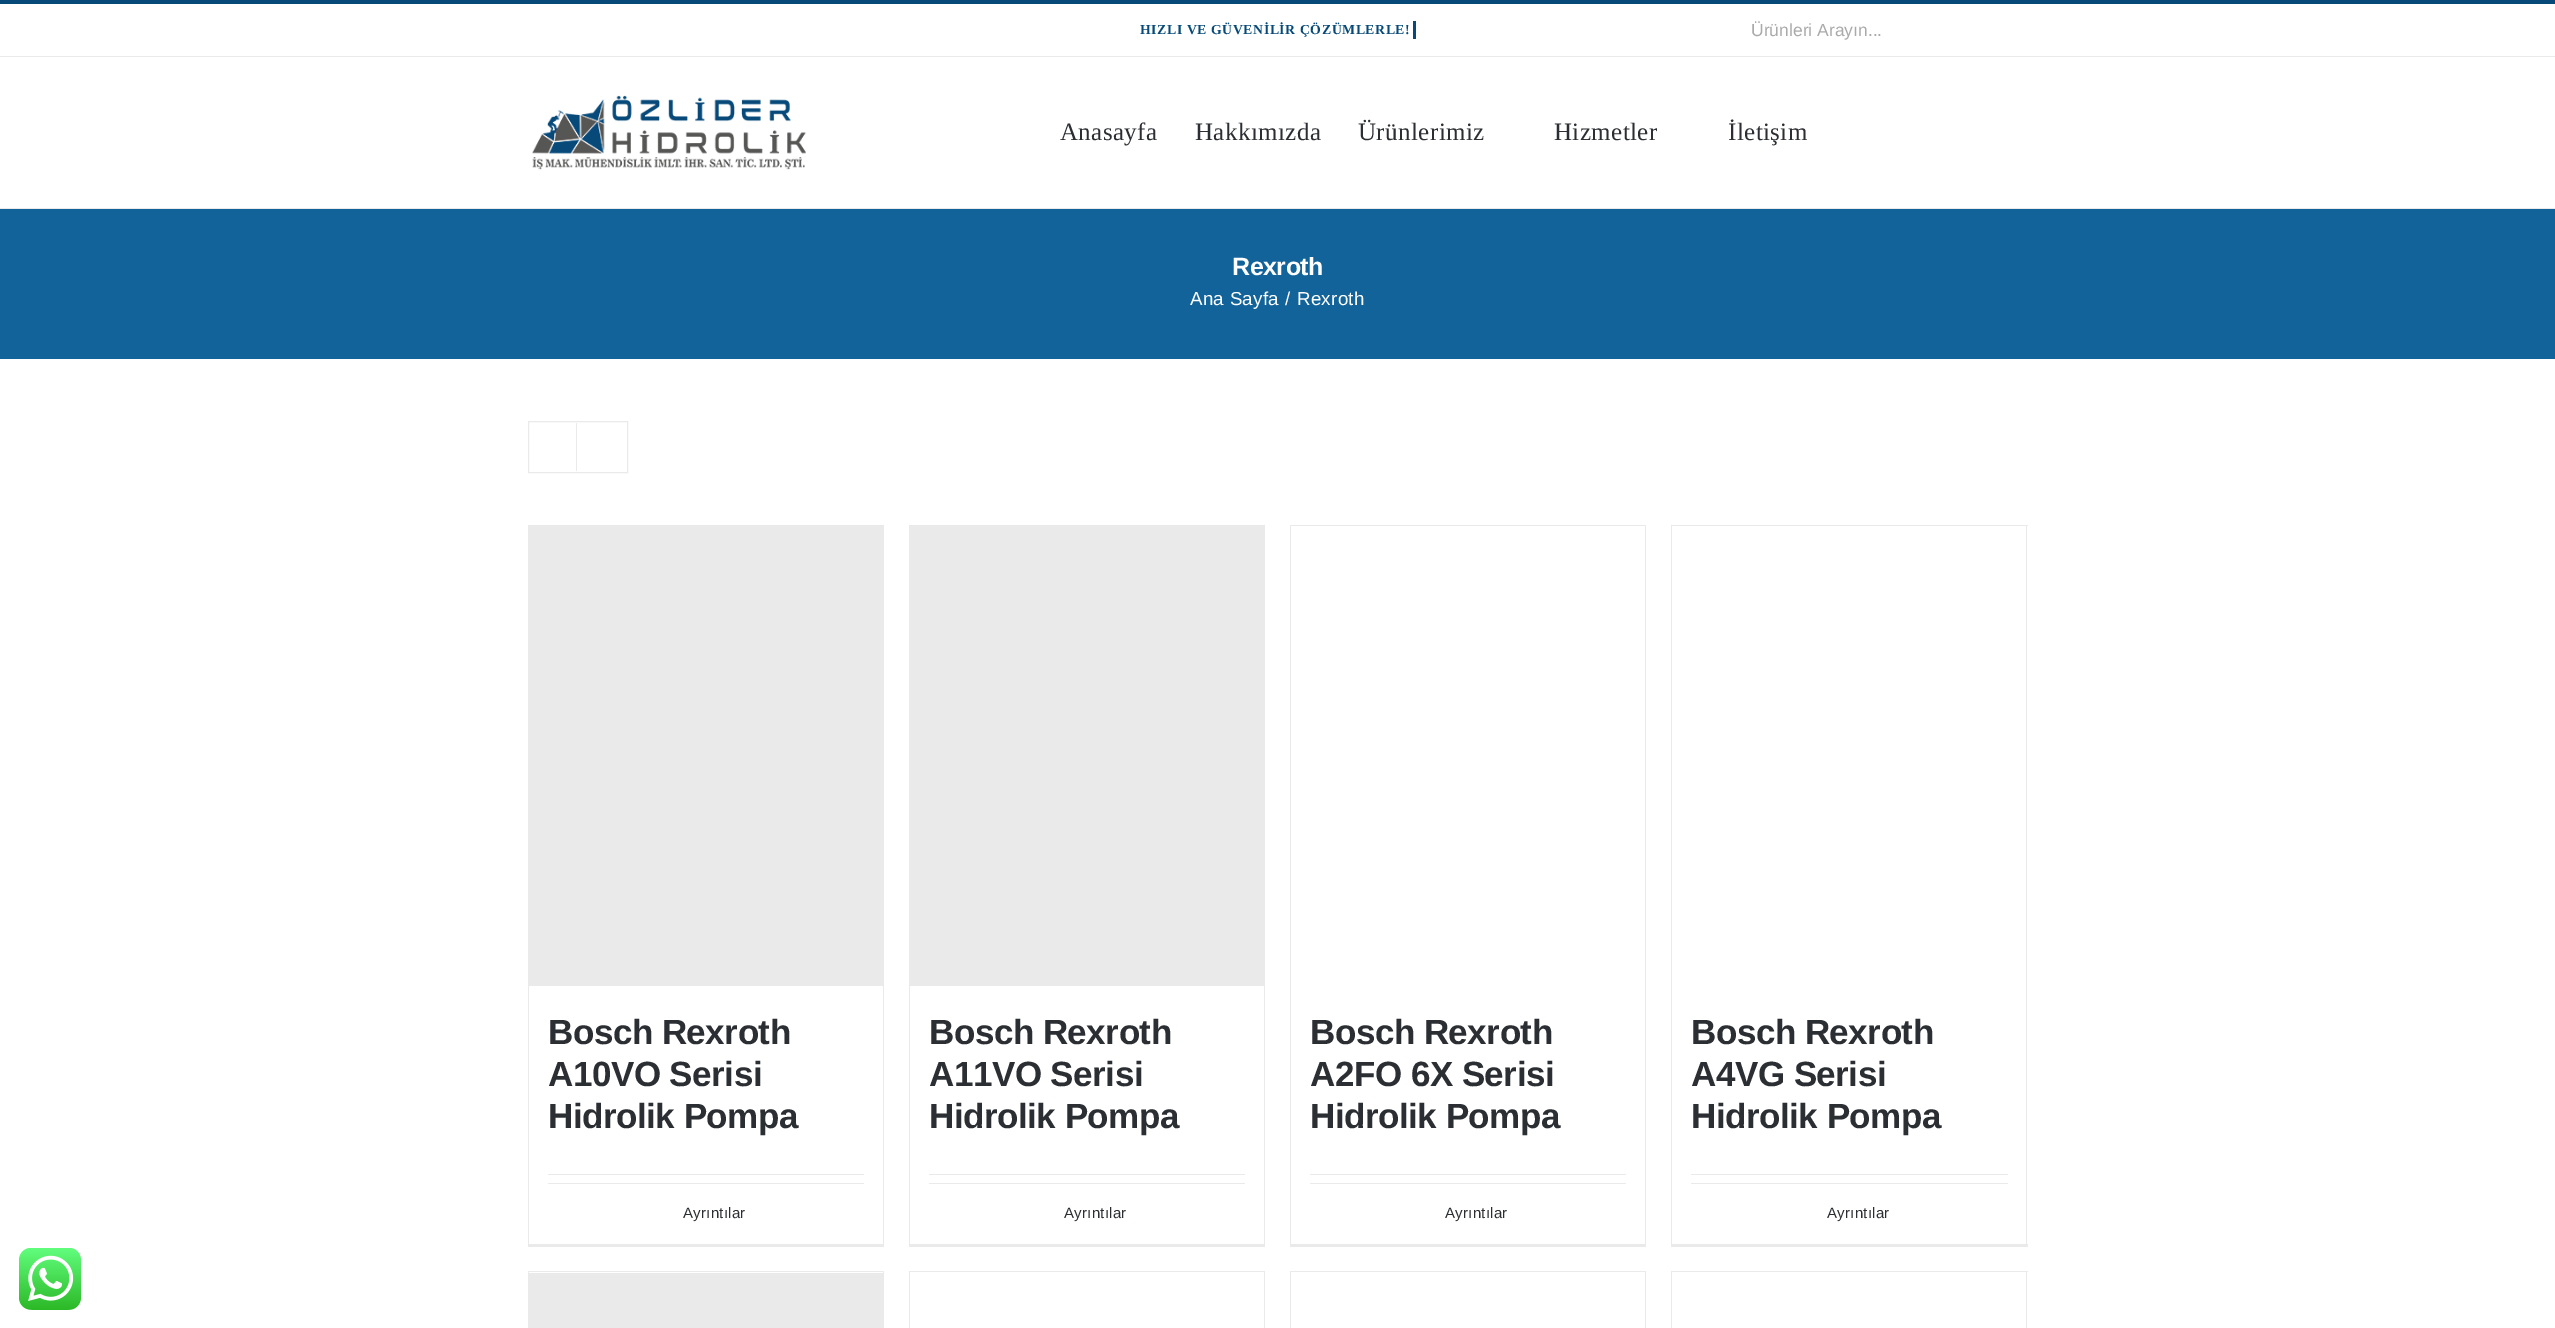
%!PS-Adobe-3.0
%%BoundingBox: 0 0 2555 1328
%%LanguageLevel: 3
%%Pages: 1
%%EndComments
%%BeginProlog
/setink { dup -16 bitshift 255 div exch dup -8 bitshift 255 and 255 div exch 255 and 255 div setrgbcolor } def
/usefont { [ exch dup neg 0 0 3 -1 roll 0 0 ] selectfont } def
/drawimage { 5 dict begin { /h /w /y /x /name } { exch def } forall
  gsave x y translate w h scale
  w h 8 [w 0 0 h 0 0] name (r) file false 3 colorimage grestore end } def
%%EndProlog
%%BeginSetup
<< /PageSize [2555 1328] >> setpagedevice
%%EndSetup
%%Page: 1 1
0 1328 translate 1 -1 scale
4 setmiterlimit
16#FFFFFF setink
0 0 2555 1328 rectfill
16#074A79 setink
0 0 2555 4 rectfill
/LiberationSerif-Bold 13.75 usefont
1140 34 moveto 0.6 0 (HIZLI VE GÜVENİLİR ÇÖZÜMLERLE!) ashow
1413 21 3 18 rectfill
/LiberationSans-Regular 17.5 usefont
16#AAAAAA setink
1751 36 moveto (Ürünleri Arayın...) show
16#EAEAEA setink
0 56 2555 1 rectfill
0 208 2555 1 rectfill
(img1.raw) 532 95 274 75 drawimage
/LiberationSerif-Regular 25 usefont
16#2B2E32 setink
1060 140 moveto 0.4 0 (Anasayfa) ashow
1195 140 moveto 0.4 0 (Hakkımızda) ashow
1358 140 moveto 0.4 0 (Ürünlerimiz) ashow
1554 140 moveto 0.4 0 (Hizmetler) ashow
1728 140 moveto 0.4 0 (İletişim) ashow
16#13639B setink
0 209 2555 150 rectfill
/LiberationSans-Bold 25 usefont
16#FFFFFF setink
1232 275 moveto -0.5 0 (Rexroth) ashow
/LiberationSans-Regular 18.75 usefont
1190 305 moveto 0.25 0 (Ana Sayfa) ashow
1285 305 moveto 0.25 0 (/) ashow
1297 305 moveto 0.25 0 (Rexroth) ashow
16#EAEAEA setink
528.5 421.5 99 51 rectstroke
[
    [576 423 1 48 16#EAEAEA]
    [528 525 356 1 16#EAEAEA]
    [883 525 1 721 16#EAEAEA]
    [528 1244 356 3 16#EAEAEA]
    [528 525 1 721 16#EAEAEA]
    [529 526 354 460 16#EAEAEA]
] { aload pop setink rectfill } forall
/LiberationSans-Bold 35 usefont
16#2B2E32 setink
548 1044 moveto -0.5 0 (Bosch Rexroth) ashow
548 1086 moveto -0.5 0 (A10VO Serisi) ashow
548 1128 moveto -0.5 0 (Hidrolik Pompa) ashow
16#EAEAEA setink
548 1174 316 1 rectfill
548 1183 316 1 rectfill
/LiberationSans-Regular 15 usefont
16#2B2E32 setink
683 1218 moveto 0.25 0 (Ayrıntılar) ashow
[
    [909 525 356 1 16#EAEAEA]
    [1264 525 1 721 16#EAEAEA]
    [909 1244 356 3 16#EAEAEA]
    [909 525 1 721 16#EAEAEA]
    [910 526 354 460 16#EAEAEA]
] { aload pop setink rectfill } forall
/LiberationSans-Bold 35 usefont
16#2B2E32 setink
929 1044 moveto -0.5 0 (Bosch Rexroth) ashow
929 1086 moveto -0.5 0 (A11VO Serisi) ashow
929 1128 moveto -0.5 0 (Hidrolik Pompa) ashow
16#EAEAEA setink
929 1174 316 1 rectfill
929 1183 316 1 rectfill
/LiberationSans-Regular 15 usefont
16#2B2E32 setink
1064 1218 moveto 0.25 0 (Ayrıntılar) ashow
[
    [1290 525 356 1 16#EAEAEA]
    [1645 525 1 721 16#EAEAEA]
    [1290 1244 356 3 16#EAEAEA]
    [1290 525 1 721 16#EAEAEA]
] { aload pop setink rectfill } forall
/LiberationSans-Bold 35 usefont
16#2B2E32 setink
1310 1044 moveto -0.5 0 (Bosch Rexroth) ashow
1310 1086 moveto -0.5 0 (A2FO 6X Serisi) ashow
1310 1128 moveto -0.5 0 (Hidrolik Pompa) ashow
16#EAEAEA setink
1310 1174 316 1 rectfill
1310 1183 316 1 rectfill
/LiberationSans-Regular 15 usefont
16#2B2E32 setink
1445 1218 moveto 0.25 0 (Ayrıntılar) ashow
[
    [1671 525 357 1 16#EAEAEA]
    [2026 525 1 721 16#EAEAEA]
    [1671 1244 357 3 16#EAEAEA]
    [1671 525 1 721 16#EAEAEA]
] { aload pop setink rectfill } forall
/LiberationSans-Bold 35 usefont
16#2B2E32 setink
1691 1044 moveto -0.5 0 (Bosch Rexroth) ashow
1691 1086 moveto -0.5 0 (A4VG Serisi) ashow
1691 1128 moveto -0.5 0 (Hidrolik Pompa) ashow
16#EAEAEA setink
1691 1174 317 1 rectfill
1691 1183 317 1 rectfill
/LiberationSans-Regular 15 usefont
16#2B2E32 setink
1827 1218 moveto 0.25 0 (Ayrıntılar) ashow
[
    [528 1271 356 1 16#EAEAEA]
    [883 1271 1 57 16#EAEAEA]
    [528 1271 1 57 16#EAEAEA]
    [529 1273 354 55 16#EAEAEA]
    [909 1271 356 1 16#EAEAEA]
    [1264 1271 1 57 16#EAEAEA]
    [909 1271 1 57 16#EAEAEA]
    [1290 1271 356 1 16#EAEAEA]
    [1645 1271 1 57 16#EAEAEA]
    [1290 1271 1 57 16#EAEAEA]
    [1671 1271 357 1 16#EAEAEA]
    [2026 1271 1 57 16#EAEAEA]
    [1671 1271 1 57 16#EAEAEA]
] { aload pop setink rectfill } forall
(img2.raw) 19 1248 62 62 drawimage
showpage
%%EOF
